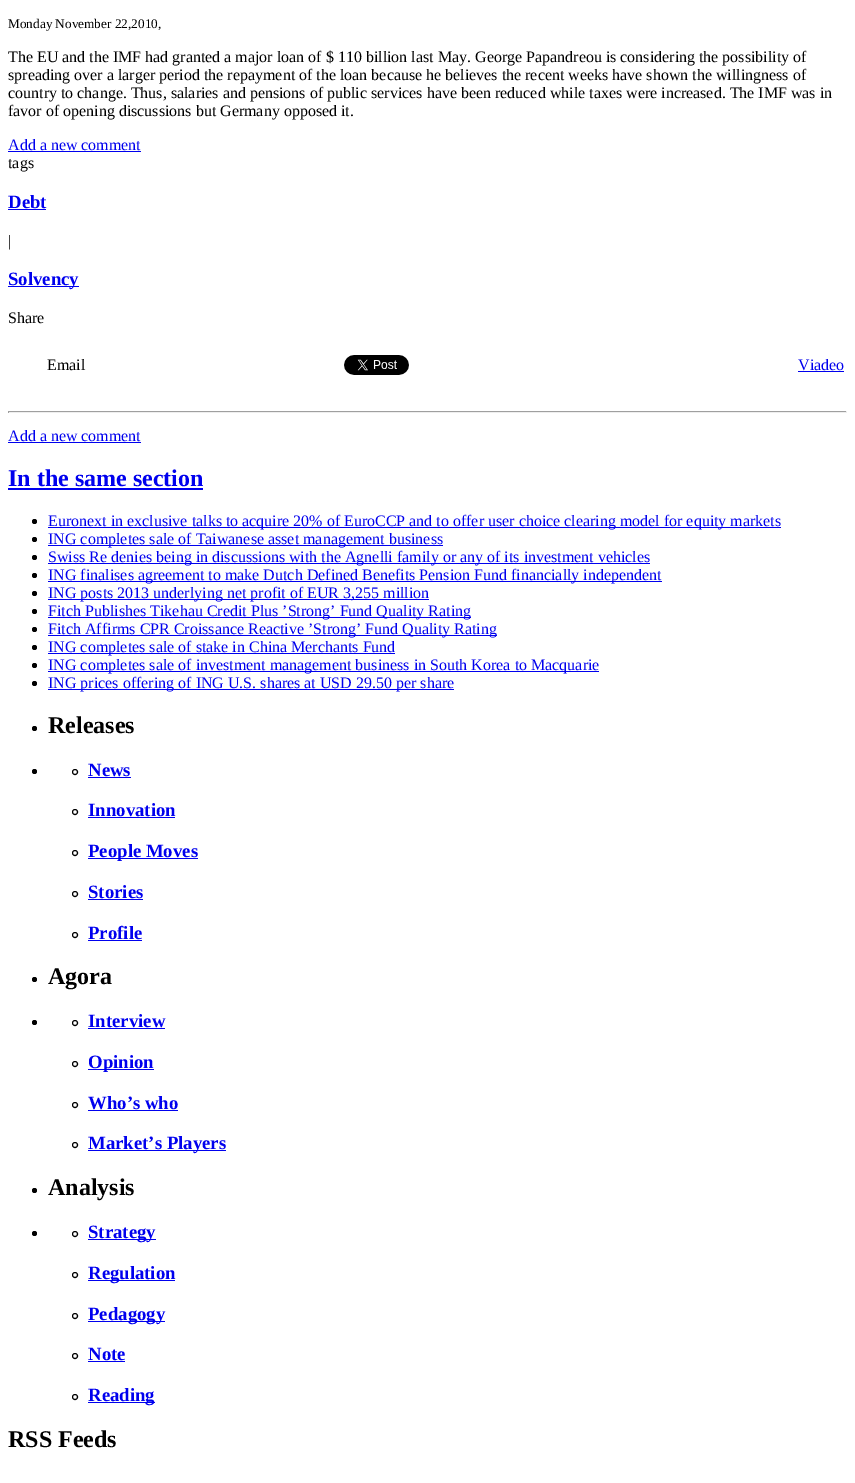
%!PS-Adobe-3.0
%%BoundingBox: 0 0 855 1483
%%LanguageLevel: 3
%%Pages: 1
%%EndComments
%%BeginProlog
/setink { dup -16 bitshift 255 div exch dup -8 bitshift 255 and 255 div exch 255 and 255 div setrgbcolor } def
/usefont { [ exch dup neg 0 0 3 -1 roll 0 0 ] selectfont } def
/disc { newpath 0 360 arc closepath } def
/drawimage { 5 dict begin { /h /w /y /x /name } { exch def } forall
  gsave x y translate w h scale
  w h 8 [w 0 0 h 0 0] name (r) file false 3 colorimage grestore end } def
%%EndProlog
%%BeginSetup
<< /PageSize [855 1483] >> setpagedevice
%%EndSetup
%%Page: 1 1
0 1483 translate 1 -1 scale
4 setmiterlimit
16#FFFFFF setink
0 0 855 1483 rectfill
/LiberationSerif-Regular 13.25 usefont
16#000000 setink
8 28 moveto (Monday November 22,2010,) show
/LiberationSerif-Regular 16 usefont
[
    [(The EU and the IMF had granted a major loan of $ 110 billion last May. George Papandreou is considering the possibility of) 8 62]
    [(spreading over a larger period the repayment of the loan because he believes the recent weeks have shown the willingness of) 8 80]
    [(country to change. Thus, salaries and pensions of public services have been reduced while taxes were increased. The IMF was in) 8 98]
    [(favor of opening discussions but Germany opposed it.) 8 116]
] { aload pop moveto show } forall
16#0000EE setink
8 150 moveto (Add a new comment) show
8 151 133 1 rectfill
16#000000 setink
8 168 moveto (tags) show
/LiberationSerif-Bold 18.75 usefont
16#0000EE setink
8 208 moveto (Debt) show
8 209 38 1 rectfill
/LiberationSerif-Regular 16 usefont
16#000000 setink
8 246 moveto (|) show
16#0000EE setink
8 286 71 1 rectfill
/LiberationSerif-Bold 18.75 usefont
8 285 moveto (Solvency) show
/LiberationSerif-Regular 16 usefont
16#000000 setink
8 323 moveto (Share) show
47 370 moveto (Email) show
(img1.raw) 344 355 65 20 drawimage
16#0000EE setink
798 370 moveto (Viadeo) show
[
    [798 371 46 1 16#0000EE]
    [8 411 839 1 16#9F9F9F]
    [846 411 1 2 16#EEEEEE]
    [8 412 839 1 16#EEEEEE]
    [8 411 1 2 16#9F9F9F]
] { aload pop setink rectfill } forall
16#0000EE setink
8 441 moveto (Add a new comment) show
8 442 133 1 rectfill
/LiberationSerif-Bold 24 usefont
8 486 moveto (In the same section) show
8 488 195 2 rectfill
16#000000 setink
34.5 521.5 2.5 disc fill
16#0000EE setink
48 527 733 1 rectfill
/LiberationSerif-Regular 16 usefont
48 526 moveto (Euronext in exclusive talks to acquire 20% of EuroCCP and to offer user choice clearing model for equity markets) show
16#000000 setink
34.5 539.5 2.5 disc fill
16#0000EE setink
48 545 395 1 rectfill
48 544 moveto (ING completes sale of Taiwanese asset management business) show
16#000000 setink
34.5 557.5 2.5 disc fill
16#0000EE setink
48 563 602 1 rectfill
48 562 moveto (Swiss Re denies being in discussions with the Agnelli family or any of its investment vehicles) show
16#000000 setink
34.5 575.5 2.5 disc fill
16#0000EE setink
48 581 614 1 rectfill
48 580 moveto (ING finalises agreement to make Dutch Defined Benefits Pension Fund financially independent) show
16#000000 setink
34.5 593.5 2.5 disc fill
16#0000EE setink
48 599 381 1 rectfill
48 598 moveto (ING posts 2013 underlying net profit of EUR 3,255 million) show
16#000000 setink
34.5 611.5 2.5 disc fill
16#0000EE setink
48 617 423 1 rectfill
48 616 moveto (Fitch Publishes Tikehau Credit Plus ’Strong’ Fund Quality Rating) show
16#000000 setink
34.5 629.5 2.5 disc fill
16#0000EE setink
48 635 449 1 rectfill
48 634 moveto (Fitch Affirms CPR Croissance Reactive ’Strong’ Fund Quality Rating) show
16#000000 setink
34.5 647.5 2.5 disc fill
16#0000EE setink
48 653 347 1 rectfill
48 652 moveto (ING completes sale of stake in China Merchants Fund) show
16#000000 setink
34.5 665.5 2.5 disc fill
16#0000EE setink
48 671 551 1 rectfill
48 670 moveto (ING completes sale of investment management business in South Korea to Macquarie) show
16#000000 setink
34.5 683.5 2.5 disc fill
16#0000EE setink
48 689 406 1 rectfill
48 688 moveto (ING prices offering of ING U.S. shares at USD 29.50 per share) show
16#000000 setink
34.5 728.5 2.5 disc fill
/LiberationSerif-Bold 24 usefont
48 733 moveto (Releases) show
34.5 771.5 2.5 disc fill
75 772 2.5 disc stroke
/LiberationSerif-Bold 18.75 usefont
16#0000EE setink
88 776 moveto (News) show
88 777 43 1 rectfill
16#000000 setink
75 812 2.5 disc stroke
16#0000EE setink
88 816 moveto (Innovation) show
88 817 87 1 rectfill
16#000000 setink
75 853 2.5 disc stroke
16#0000EE setink
88 858 110 1 rectfill
88 857 moveto (People Moves) show
16#000000 setink
75 894 2.5 disc stroke
16#0000EE setink
88 898 moveto (Stories) show
88 899 55 1 rectfill
16#000000 setink
75 935 2.5 disc stroke
16#0000EE setink
88 939 moveto (Profile) show
88 940 54 1 rectfill
16#000000 setink
34.5 979.5 2.5 disc fill
/LiberationSerif-Bold 24 usefont
48 984 moveto (Agora) show
34.5 1022.5 2.5 disc fill
75 1023 2.5 disc stroke
/LiberationSerif-Bold 18.75 usefont
16#0000EE setink
88 1027 moveto (Interview) show
88 1028 77 1 rectfill
16#000000 setink
75 1064 2.5 disc stroke
16#0000EE setink
88 1069 66 1 rectfill
88 1068 moveto (Opinion) show
16#000000 setink
75 1105 2.5 disc stroke
16#0000EE setink
88 1109 moveto (Who’s who) show
88 1110 90 1 rectfill
16#000000 setink
75 1145 2.5 disc stroke
16#0000EE setink
88 1150 138 1 rectfill
88 1149 moveto (Market’s Players) show
16#000000 setink
34.5 1190.5 2.5 disc fill
/LiberationSerif-Bold 24 usefont
48 1195 moveto (Analysis) show
34.5 1233.5 2.5 disc fill
75 1234 2.5 disc stroke
16#0000EE setink
88 1239 68 1 rectfill
/LiberationSerif-Bold 18.75 usefont
88 1238 moveto (Strategy) show
16#000000 setink
75 1275 2.5 disc stroke
16#0000EE setink
88 1280 87 1 rectfill
88 1279 moveto (Regulation) show
16#000000 setink
75 1316 2.5 disc stroke
16#0000EE setink
88 1321 77 1 rectfill
88 1320 moveto (Pedagogy) show
16#000000 setink
75 1356 2.5 disc stroke
16#0000EE setink
88 1360 moveto (Note) show
88 1361 37 1 rectfill
16#000000 setink
75 1397 2.5 disc stroke
16#0000EE setink
88 1402 67 1 rectfill
88 1401 moveto (Reading) show
/LiberationSerif-Bold 24 usefont
16#000000 setink
8 1447 moveto (RSS Feeds) show
showpage
%%EOF
